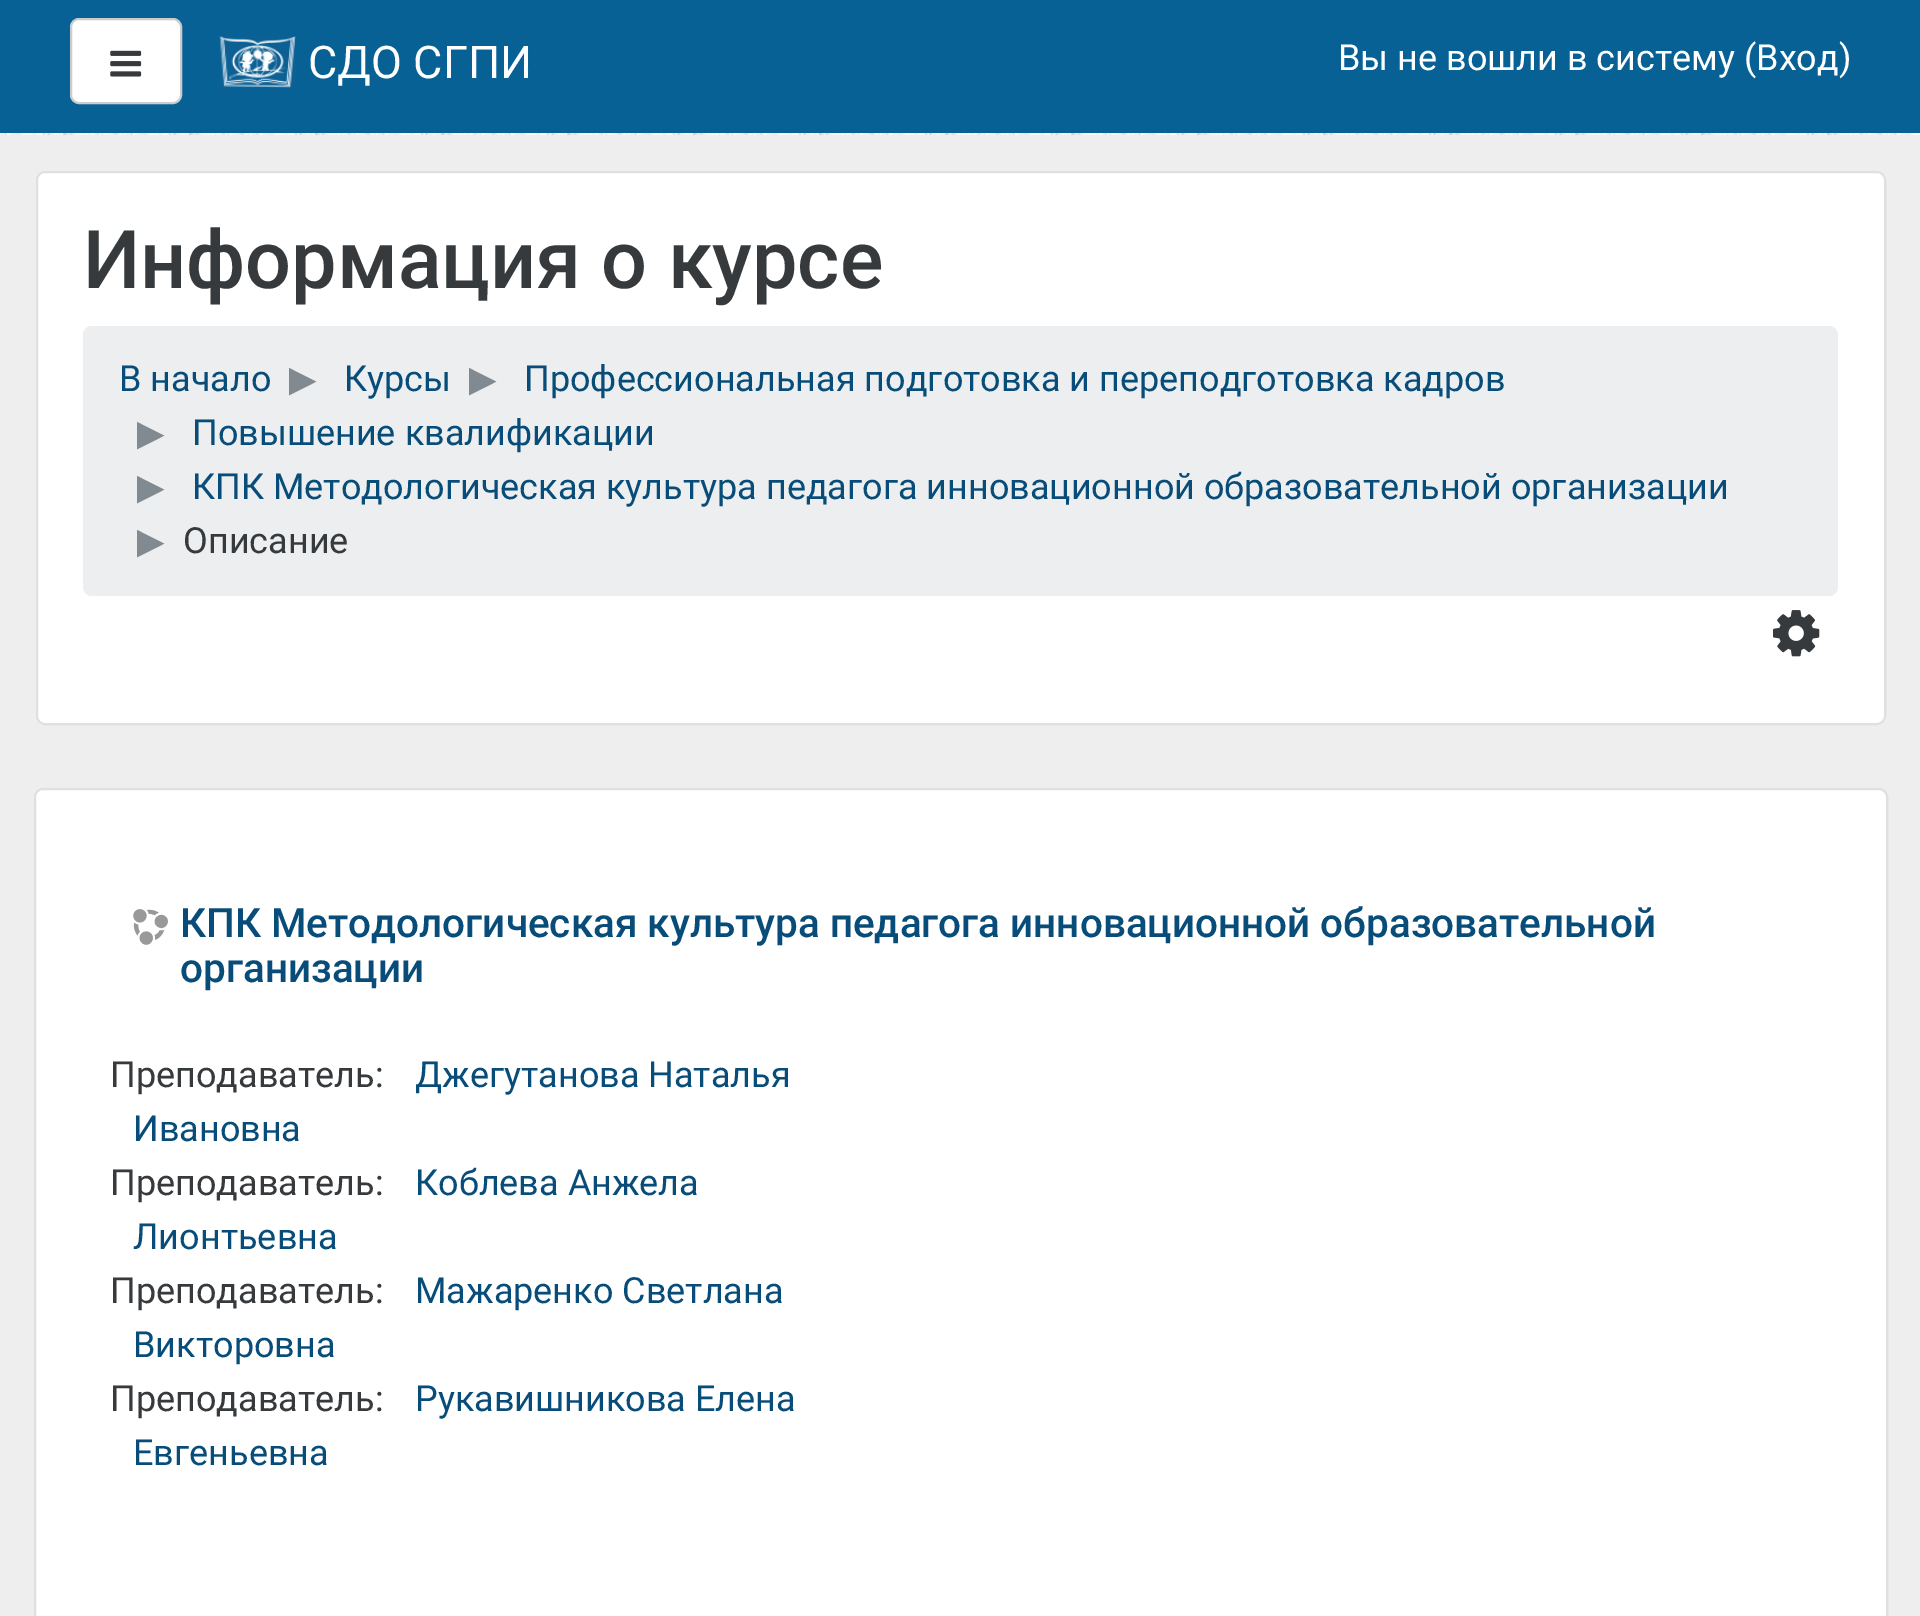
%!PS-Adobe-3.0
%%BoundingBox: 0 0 1920 1616
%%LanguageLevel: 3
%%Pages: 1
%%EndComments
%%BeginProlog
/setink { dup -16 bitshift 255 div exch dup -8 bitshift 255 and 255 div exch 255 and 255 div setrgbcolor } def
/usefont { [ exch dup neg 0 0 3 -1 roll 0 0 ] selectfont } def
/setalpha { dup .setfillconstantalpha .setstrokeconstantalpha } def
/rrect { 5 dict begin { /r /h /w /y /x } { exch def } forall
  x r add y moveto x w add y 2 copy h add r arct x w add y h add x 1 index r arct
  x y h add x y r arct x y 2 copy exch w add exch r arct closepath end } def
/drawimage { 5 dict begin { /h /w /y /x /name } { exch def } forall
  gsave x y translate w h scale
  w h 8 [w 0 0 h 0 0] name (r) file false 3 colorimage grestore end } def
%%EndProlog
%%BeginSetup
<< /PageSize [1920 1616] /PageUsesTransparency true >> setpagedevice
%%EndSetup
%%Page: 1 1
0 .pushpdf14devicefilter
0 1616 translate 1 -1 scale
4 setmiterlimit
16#FFFFFF setink
0 0 1920 1616 rectfill
(img1.raw) 0 133 1920 2 drawimage
16#086195 setink
0 0 1920 133 rectfill
16#FFFFFF setink
71 19 110 84 8 rrect gsave fill grestore
16#CCCCCC setink
2 setlinewidth
stroke
(img2.raw) 110 50 32 27 drawimage
(img3.raw) 219 36 77 52 drawimage
/Roboto-Regular 45 usefont
16#FFFFFF setink
308 78 moveto (СДО СГПИ) show
/Roboto-Regular 36 usefont
1338 70 moveto (Вы не вошли в систему \(Вход\)) show
16#EEEEEE setink
0 135 1920 1481 rectfill
16#FFFFFF setink
36 171 1850 554 9 rrect fill
0.12 setalpha
16#000000 setink
37 172 1848 552 8 rrect stroke
/Roboto-Medium 81 usefont
1 setalpha
16#373A3C setink
83 288 moveto (Информация о курсе) show
16#ECEEEF setink
83 326 1755 270 9 rrect fill
/Roboto-Regular 36 usefont
16#084D79 setink
119 391 moveto (В начало) show
/DejaVuSans-Regular 36 usefont
16#818A91 setink
289 391 moveto (▶) show
/Roboto-Regular 36 usefont
16#084D79 setink
344 391 moveto (Курсы) show
/DejaVuSans-Regular 36 usefont
16#818A91 setink
469 391 moveto (▶) show
/Roboto-Regular 36 usefont
16#084D79 setink
524 391 moveto (Профессиональная подготовка и переподготовка кадров) show
/DejaVuSans-Regular 36 usefont
16#818A91 setink
137 445 moveto (▶) show
/Roboto-Regular 36 usefont
16#084D79 setink
192 445 moveto (Повышение квалификации) show
/DejaVuSans-Regular 36 usefont
16#818A91 setink
137 499 moveto (▶) show
/Roboto-Regular 36 usefont
16#084D79 setink
192 499 moveto (КПК Методологическая культура педагога инновационной образовательной организации) show
/DejaVuSans-Regular 36 usefont
16#818A91 setink
137 553 moveto (▶) show
/Roboto-Regular 36 usefont
16#373A3C setink
183 553 moveto (Описание) show
(img4.raw) 1773 610 47 47 drawimage
16#FFFFFF setink
34 788 1854 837 9 rrect fill
0.12 setalpha
16#000000 setink
35 789 1852 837 8 rrect stroke
1 setalpha
(img5.raw) 133 909 35 36 drawimage
/Roboto-Medium 40.5 usefont
16#084D79 setink
180 937 moveto (КПК Методологическая культура педагога инновационной образовательной) show
180 982 moveto (организации) show
/Roboto-Regular 36 usefont
16#373A3C setink
110 1087 moveto (Преподаватель:) show
16#084D79 setink
415 1087 moveto (Джегутанова Наталья) show
133 1141 moveto (Ивановна) show
16#373A3C setink
110 1195 moveto (Преподаватель:) show
16#084D79 setink
415 1195 moveto (Коблева Анжела) show
133 1249 moveto (Лионтьевна) show
16#373A3C setink
110 1303 moveto (Преподаватель:) show
16#084D79 setink
415 1303 moveto (Мажаренко Светлана) show
133 1357 moveto (Викторовна) show
16#373A3C setink
110 1411 moveto (Преподаватель:) show
16#084D79 setink
415 1411 moveto (Рукавишникова Елена) show
133 1465 moveto (Евгеньевна) show
.poppdf14devicefilter showpage
%%EOF
